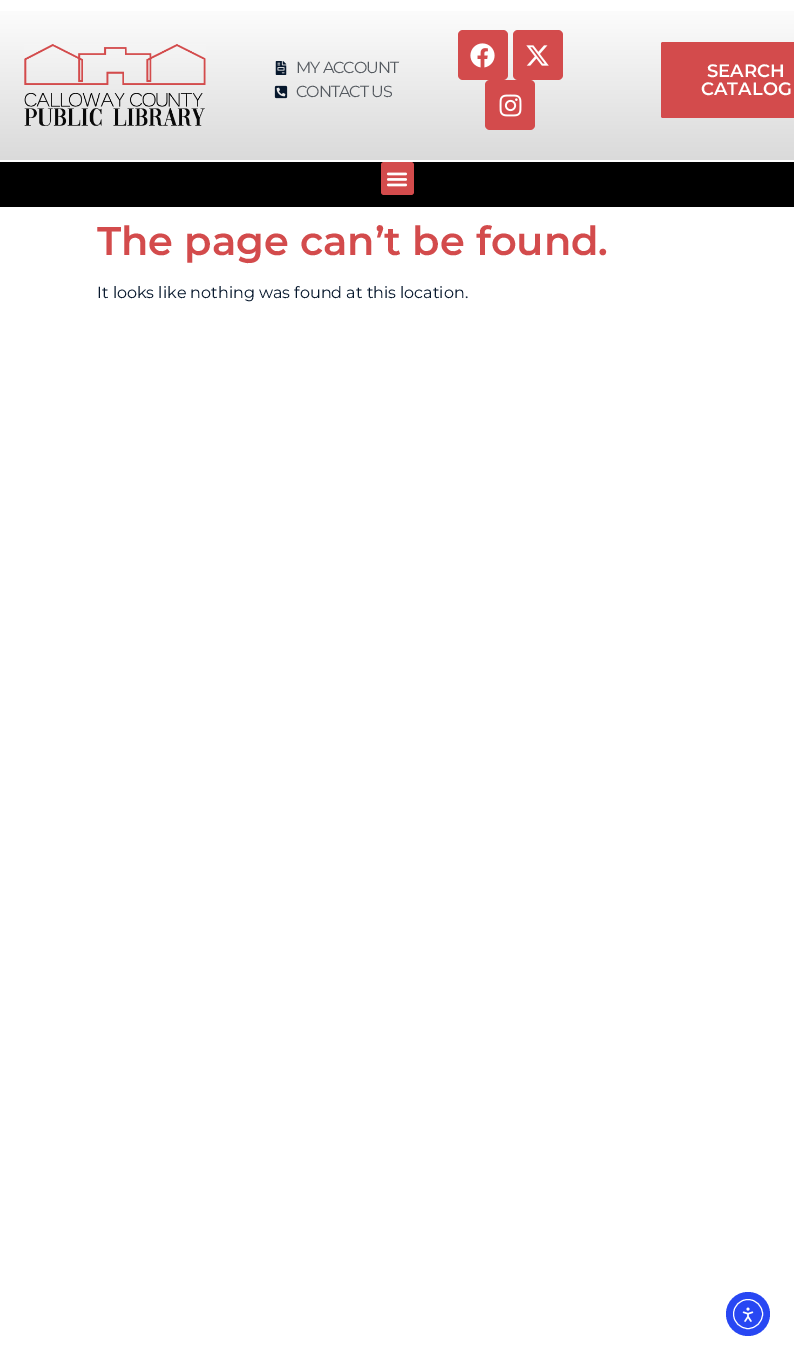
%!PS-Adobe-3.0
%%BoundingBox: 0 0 794 1360
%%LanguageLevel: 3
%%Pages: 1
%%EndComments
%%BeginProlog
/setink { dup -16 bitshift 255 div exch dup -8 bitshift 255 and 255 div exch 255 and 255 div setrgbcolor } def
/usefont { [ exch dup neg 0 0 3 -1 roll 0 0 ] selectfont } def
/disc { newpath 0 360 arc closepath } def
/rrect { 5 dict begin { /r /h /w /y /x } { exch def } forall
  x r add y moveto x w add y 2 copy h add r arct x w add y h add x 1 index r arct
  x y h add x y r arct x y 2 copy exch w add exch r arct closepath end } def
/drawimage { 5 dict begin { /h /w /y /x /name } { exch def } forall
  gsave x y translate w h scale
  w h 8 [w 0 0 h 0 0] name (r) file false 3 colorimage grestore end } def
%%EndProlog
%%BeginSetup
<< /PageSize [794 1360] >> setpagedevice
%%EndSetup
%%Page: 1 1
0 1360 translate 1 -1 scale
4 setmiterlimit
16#FFFFFF setink
0 0 794 1360 rectfill
gsave 0 11 moveto 794 11 lineto 794 160 lineto 0 160 lineto closepath clip newpath
<< /ShadingType 2 /ColorSpace /DeviceRGB /Coords [397 0 397 160] /Extend [true true] /Function << /FunctionType 2 /Domain [0 1] /C0 [1 1 1] /C1 [0.855 0.855 0.855] /N 1 >> >> shfill grestore
(img1.raw) 24 44 182 82 drawimage
(img2.raw) 275 61 12 14 drawimage
/Montserrat-Regular 16 usefont
16#54595F setink
296 73 moveto -1 0 (MY ACCOUNT) ashow
(img3.raw) 274 85 14 14 drawimage
296 97 moveto -1 0 (CONTACT US) ashow
16#D34B4C setink
458 30 50 50 5 rrect fill
(img4.raw) 470 43 25 25 drawimage
513 30 50 50 5 rrect fill
(img5.raw) 526 45 23 21 drawimage
485 80 50 50 5 rrect fill
(img6.raw) 499 94 23 23 drawimage
661 42 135 76 2 rrect fill
/Montserrat-SemiBold 18 usefont
16#FFFFFF setink
707 77 moveto (SEARCH) show
701 95 moveto (CATALOG) show
16#000000 setink
0 162 794 45 rectfill
16#D34B4C setink
381 162 33 33 3 rrect fill
(img7.raw) 386 172 22 15 drawimage
/Montserrat-SemiBold 40 usefont
97 255 moveto (The page can’t be found.) show
/Montserrat-Regular 16 usefont
16#07182D setink
97 298 moveto (It looks like nothing was found at this location.) show
16#2847F3 setink
748 1314 22 disc fill
16#FFFFFF setink
748 1314 14.5 disc stroke
(img8.raw) 742 1307 12 15 drawimage
showpage
%%EOF
